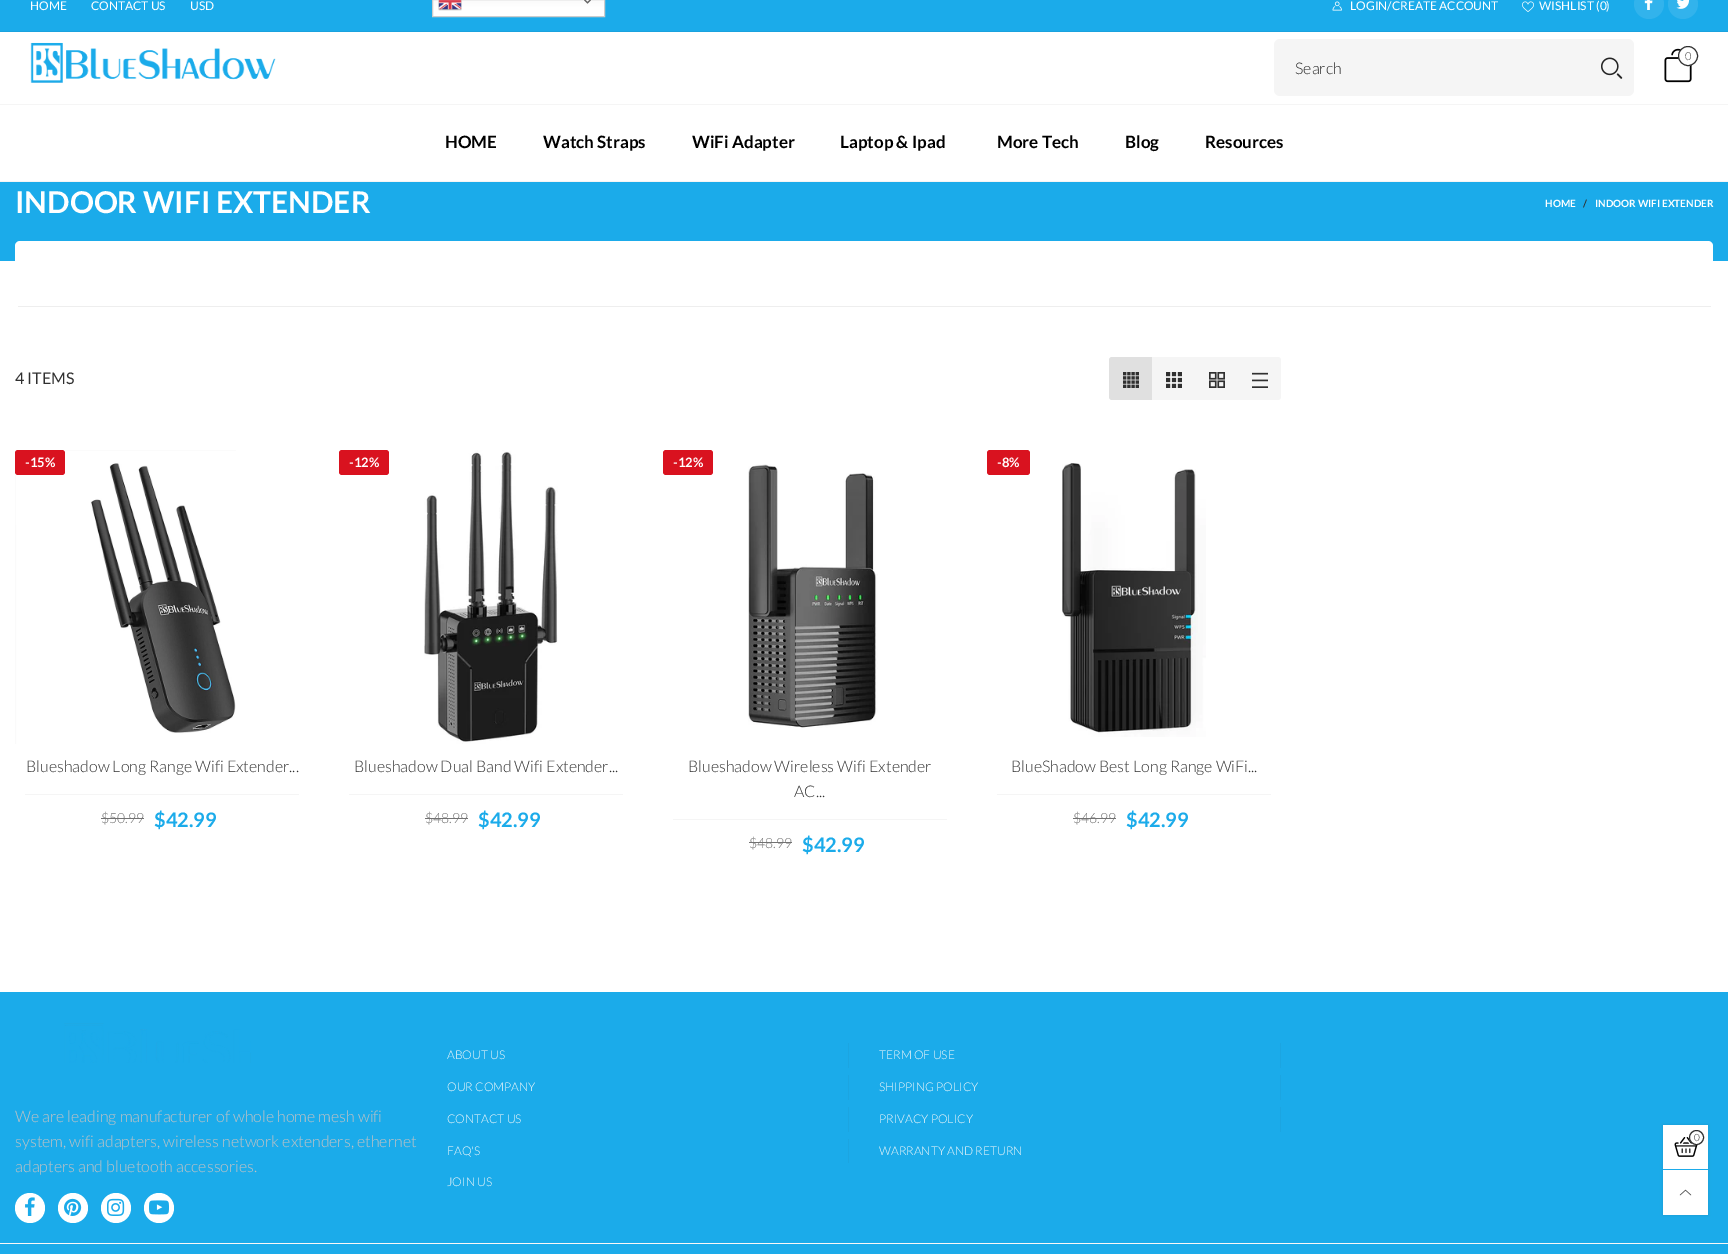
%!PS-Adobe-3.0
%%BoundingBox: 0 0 1728 1254
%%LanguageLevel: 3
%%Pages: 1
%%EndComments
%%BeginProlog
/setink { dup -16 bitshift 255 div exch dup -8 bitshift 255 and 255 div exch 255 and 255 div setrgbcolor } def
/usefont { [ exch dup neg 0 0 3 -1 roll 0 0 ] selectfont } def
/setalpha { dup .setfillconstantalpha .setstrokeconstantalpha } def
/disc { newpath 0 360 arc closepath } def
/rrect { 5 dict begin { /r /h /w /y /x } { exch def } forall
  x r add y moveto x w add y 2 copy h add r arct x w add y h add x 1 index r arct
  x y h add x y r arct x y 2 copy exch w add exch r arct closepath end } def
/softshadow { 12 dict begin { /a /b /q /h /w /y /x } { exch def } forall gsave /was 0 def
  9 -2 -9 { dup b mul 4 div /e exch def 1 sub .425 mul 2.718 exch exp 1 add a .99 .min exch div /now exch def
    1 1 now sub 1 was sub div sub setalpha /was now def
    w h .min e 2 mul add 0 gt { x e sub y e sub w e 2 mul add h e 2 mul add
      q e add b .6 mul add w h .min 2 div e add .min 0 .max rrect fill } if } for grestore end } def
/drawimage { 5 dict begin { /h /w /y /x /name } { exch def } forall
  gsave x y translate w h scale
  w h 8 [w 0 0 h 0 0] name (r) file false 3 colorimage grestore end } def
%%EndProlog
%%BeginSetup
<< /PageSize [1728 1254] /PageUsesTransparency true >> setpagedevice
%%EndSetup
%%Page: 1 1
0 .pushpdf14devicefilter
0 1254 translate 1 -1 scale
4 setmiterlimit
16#FFFFFF setink
0 0 1728 1254 rectfill
16#1BABEA setink
0 0 1728 31 rectfill
gsave 433 0 moveto 604 0 lineto 604 16 lineto 433 16 lineto closepath clip newpath
<< /ShadingType 2 /ColorSpace /DeviceRGB /Coords [519 -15 519 17] /Extend [true true] /Function << /FunctionType 3 /Domain [0 1] /Functions [<< /FunctionType 2 /Domain [0 1] /C0 [0.937 0.937 0.937] /C1 [1 1 1] /N 1 >> << /FunctionType 2 /Domain [0 1] /C0 [1 1 1] /C1 [1 1 1] /N 1 >>] /Bounds [0.7] /Encode [0 1 0 1] >> >> shfill grestore
16#CCCCCC setink
432.5 -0.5 172 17 rectstroke
(img1.raw) 438 0 24 11 drawimage
(img2.raw) 583 0 9 4 drawimage
16#1AA2DE setink
0 31 1728 1 rectfill
/Lato-Regular 12 usefont
16#FFFFFF setink
[
    [(HOME) 30 10]
    [(CONTACT US) 91 10]
    [(USD) 190 10]
] { aload pop moveto show } forall
(img3.raw) 1332 1 10 10 drawimage
1350 10 moveto (LOGIN/CREATE ACCOUNT) show
(img4.raw) 1522 1 12 11 drawimage
1539 10 moveto (WISHLIST \(0\)) show
16#32B3EC setink
1649 4 15 disc fill
(img5.raw) 1644 0 9 10 drawimage
1683 4 15 disc fill
(img6.raw) 1676 0 14 9 drawimage
(img7.raw) 30 42 246 41 drawimage
(img8.raw) 1664 48 28 35 drawimage
16#FFFFFF setink
1688 56 9.5 disc gsave fill grestore
16#303030 setink
stroke
/Lato-Light 11 usefont
1685 60 moveto (0) show
16#F5F5F5 setink
1274 39 360 57 6 rrect fill
/Lato-Light 16 usefont
16#252525 setink
1295 74 moveto (Search) show
(img9.raw) 1601 57 22 22 drawimage
16#F5F5F5 setink
0 104 1728 1 rectfill
0 181 1728 1 rectfill
/Lato-Bold 17 usefont
16#000000 setink
[
    [(HOME) 445 148]
    [(Watch Straps) 543 148]
    [(WiFi Adapter) 692 148]
    [(Laptop & Ipad) 840 148]
    [(More Tech) 997 148]
    [(Blog) 1125 148]
    [(Resources) 1205 148]
] { aload pop moveto show } forall
16#1BABEA setink
0 182 1728 79 rectfill
/Lato-Bold 30 usefont
16#FFFFFF setink
15 213 moveto (INDOOR WIFI EXTENDER) show
/Lato-Bold 10 usefont
1545 207 moveto (HOME) show
16#303030 setink
1583 207 moveto (/) show
16#FFFFFF setink
1595 207 moveto (INDOOR WIFI EXTENDER) show
15 241 1698 66 5 rrect fill
16#EEEEEE setink
18 306 1693 1 rectfill
/Lato-Regular 16 usefont
16#303030 setink
15 384 moveto (4 ITEMS) show
16#E0E0E0 setink
1112 357 moveto 1152 357 lineto 1152 400 lineto 1112 400 lineto 1110.5 400 1109 398.5 1109 397 curveto 1109 360 lineto 1109 358.5 1110.5 357 1112 357 curveto closepath fill
(img10.raw) 1123 372 16 16 drawimage
16#F5F5F5 setink
1152 357 86 43 rectfill
(img11.raw) 1166 372 16 16 drawimage
1238 357 moveto 1278 357 lineto 1279.5 357 1281 358.5 1281 360 curveto 1281 397 lineto 1281 398.5 1279.5 400 1278 400 curveto 1238 400 lineto closepath fill
(img12.raw) 1252 372 16 16 drawimage
(img13.raw) 1209 372 16 16 drawimage
(img14.raw) 15 450 221 294 drawimage
16#D9121F setink
15 450 50 25 3 rrect fill
/Lato-Bold 13 usefont
16#FFFFFF setink
25 467 moveto (-15%) show
/Lato-Light 16 usefont
16#303030 setink
26 772 moveto (Blueshadow Long Range Wifi Extender...) show
16#F5F5F5 setink
25 794 274 1 rectfill
/Lato-Light 14 usefont
16#727272 setink
101 823 moveto ($50.99) show
101 818 43 1 rectfill
/Lato-Bold 20 usefont
16#1BABEA setink
154 827 moveto ($42.99) show
16#D9121F setink
339 450 50 25 3 rrect fill
/Lato-Bold 13 usefont
16#FFFFFF setink
349 467 moveto (-12%) show
(img15.raw) 424 450 134 294 drawimage
/Lato-Light 16 usefont
16#303030 setink
354 772 moveto (Blueshadow Dual Band Wifi Extender...) show
16#F5F5F5 setink
349 794 274 1 rectfill
/Lato-Light 14 usefont
16#727272 setink
425 823 moveto ($48.99) show
425 818 43 1 rectfill
/Lato-Bold 20 usefont
16#1BABEA setink
478 827 moveto ($42.99) show
16#D9121F setink
663 450 50 25 3 rrect fill
/Lato-Bold 13 usefont
16#FFFFFF setink
673 467 moveto (-12%) show
(img16.raw) 748 464 130 264 drawimage
/Lato-Light 16 usefont
16#303030 setink
688 772 moveto (Blueshadow Wireless Wifi Extender) show
794 797 moveto (AC...) show
16#F5F5F5 setink
673 819 274 1 rectfill
/Lato-Light 14 usefont
16#727272 setink
749 848 moveto ($48.99) show
749 842 43 1 rectfill
/Lato-Bold 20 usefont
16#1BABEA setink
802 852 moveto ($42.99) show
16#D9121F setink
987 450 43 25 3 rrect fill
/Lato-Bold 13 usefont
16#FFFFFF setink
997 467 moveto (-8%) show
(img17.raw) 1062 463 144 274 drawimage
/Lato-Light 16 usefont
16#303030 setink
1011 772 moveto (BlueShadow Best Long Range WiFi...) show
16#F5F5F5 setink
997 794 274 1 rectfill
/Lato-Light 14 usefont
16#727272 setink
1073 823 moveto ($46.99) show
1073 818 43 1 rectfill
/Lato-Bold 20 usefont
16#1BABEA setink
1126 827 moveto ($42.99) show
0 992 1728 262 rectfill
(img18.raw) 64 1023 187 40 drawimage
/Lato-Light 16 usefont
16#C5C2C2 setink
[
    [(We are leading manufacturer of whole home mesh wifi) 15 1122]
    [(system, wifi adapters, wireless network extenders, ethernet) 15 1147]
    [(adapters and bluetooth accessories.) 15 1172]
] { aload pop moveto show } forall
16#FFFFFF setink
30 1208 15 disc fill
(img19.raw) 25 1197 10 19 drawimage
73 1208 15 disc fill
(img20.raw) 64 1198 18 18 drawimage
116 1208 15 disc fill
(img21.raw) 107 1198 18 18 drawimage
159 1208 15 disc fill
(img22.raw) 149 1200 20 15 drawimage
16#1CA5E1 setink
848 1043 1 25 rectfill
/Lato-Light 12 usefont
16#F9F9F9 setink
447 1059 moveto (ABOUT US) show
16#1CA5E1 setink
848 1075 1 25 rectfill
16#F9F9F9 setink
447 1091 moveto (OUR COMPANY) show
16#1CA5E1 setink
848 1107 1 25 rectfill
16#F9F9F9 setink
447 1123 moveto (CONTACT US) show
16#1CA5E1 setink
848 1139 1 24 rectfill
16#F9F9F9 setink
447 1155 moveto (FAQ'S) show
447 1186 moveto (JOIN US) show
16#1CA5E1 setink
1280 1043 1 25 rectfill
16#F9F9F9 setink
879 1059 moveto (TERM OF USE) show
16#1CA5E1 setink
1280 1075 1 25 rectfill
16#F9F9F9 setink
879 1091 moveto (SHIPPING POLICY) show
16#1CA5E1 setink
1280 1107 1 25 rectfill
16#F9F9F9 setink
879 1123 moveto (PRIVACY POLICY) show
879 1155 moveto (WARRANTY AND RETURN) show
16#FBF7F7 setink
0 1243 1728 1 rectfill
16#303030 setink
1663 1125 45 90 0 1.5 0.15 softshadow
16#FFFFFF setink
1663 1125 45 90 rectfill
16#1BABEA setink
1663 1169 45 1 rectfill
(img23.raw) 1674 1137 24 20 drawimage
16#FFFFFF setink
1696.5 1137.5 7 disc gsave fill grestore
16#303030 setink
stroke
/Lato-Light 10 usefont
1694 1141 moveto (0) show
(img24.raw) 1679 1189 13 7 drawimage
.poppdf14devicefilter showpage
%%EOF
